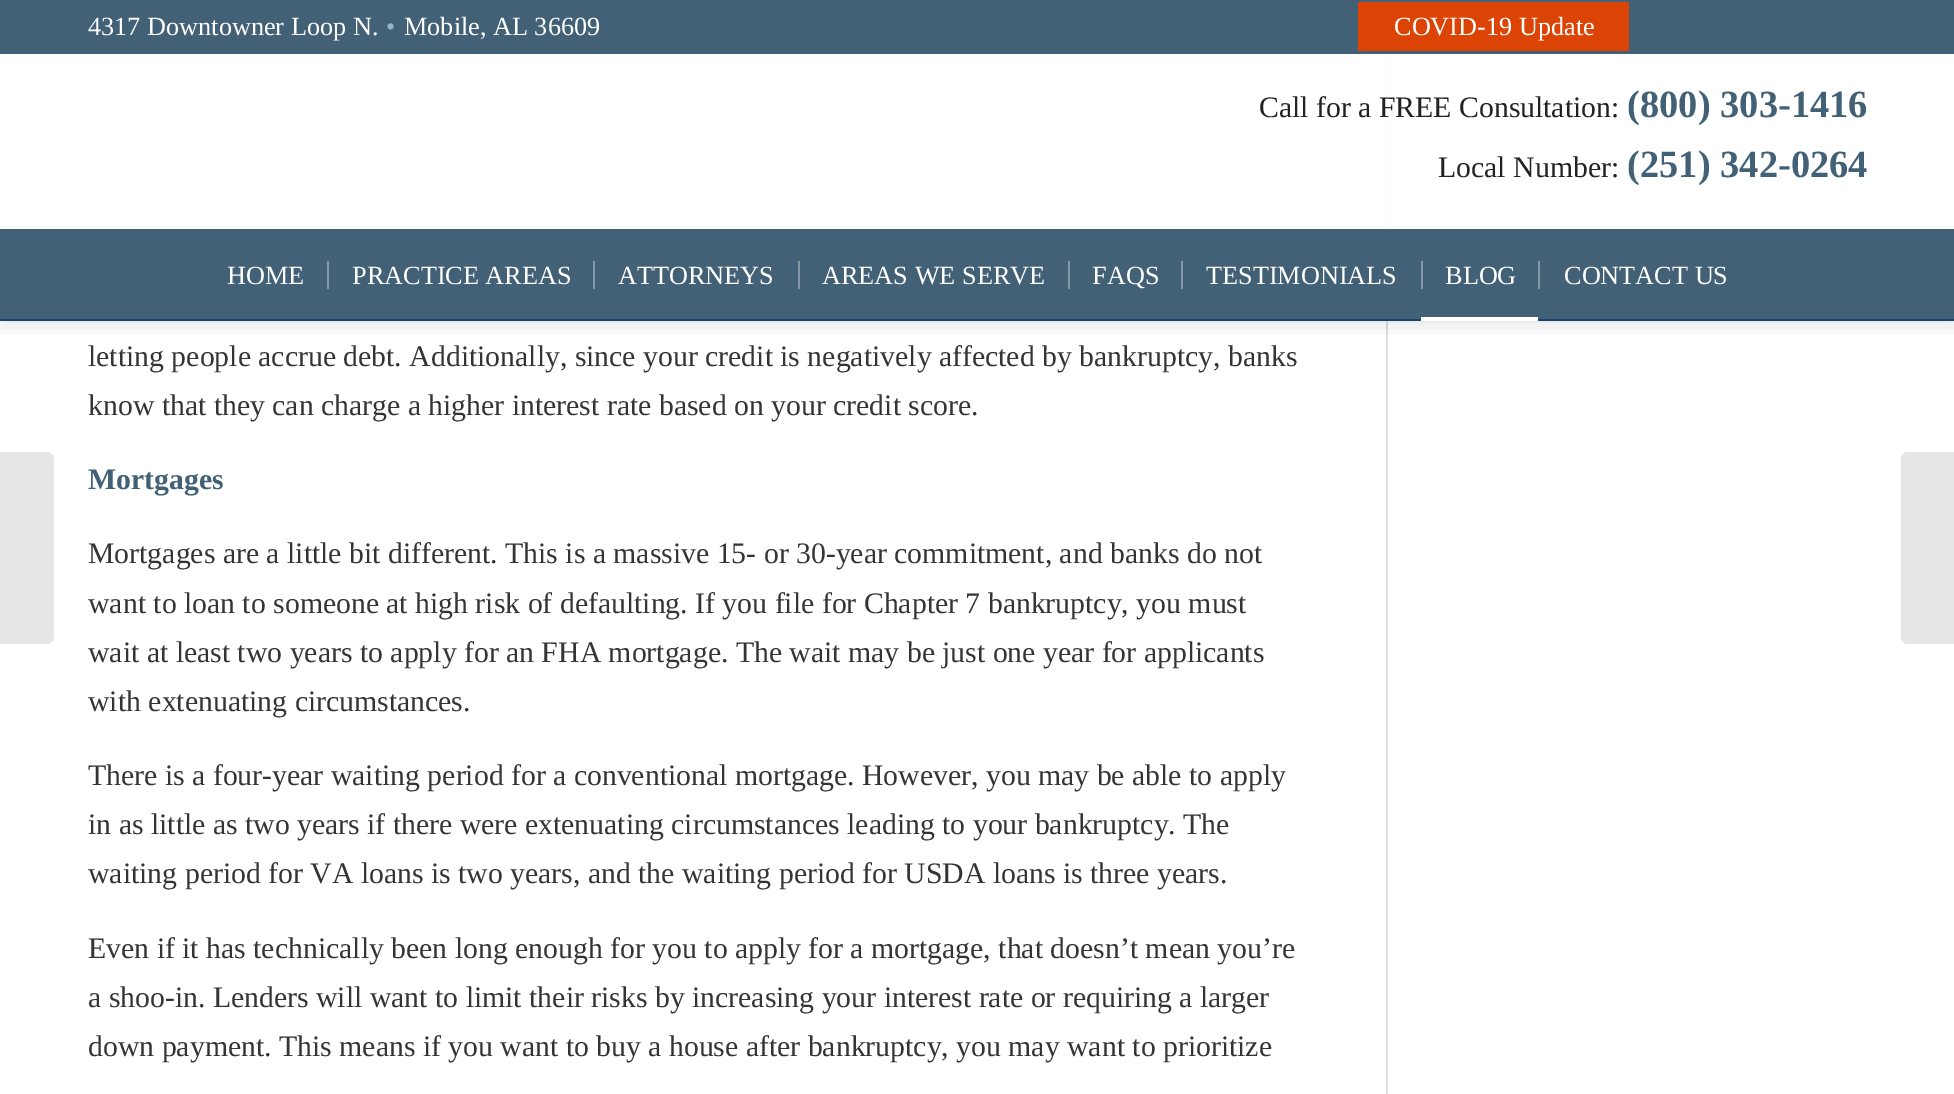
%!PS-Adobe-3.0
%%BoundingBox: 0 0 1954 1094
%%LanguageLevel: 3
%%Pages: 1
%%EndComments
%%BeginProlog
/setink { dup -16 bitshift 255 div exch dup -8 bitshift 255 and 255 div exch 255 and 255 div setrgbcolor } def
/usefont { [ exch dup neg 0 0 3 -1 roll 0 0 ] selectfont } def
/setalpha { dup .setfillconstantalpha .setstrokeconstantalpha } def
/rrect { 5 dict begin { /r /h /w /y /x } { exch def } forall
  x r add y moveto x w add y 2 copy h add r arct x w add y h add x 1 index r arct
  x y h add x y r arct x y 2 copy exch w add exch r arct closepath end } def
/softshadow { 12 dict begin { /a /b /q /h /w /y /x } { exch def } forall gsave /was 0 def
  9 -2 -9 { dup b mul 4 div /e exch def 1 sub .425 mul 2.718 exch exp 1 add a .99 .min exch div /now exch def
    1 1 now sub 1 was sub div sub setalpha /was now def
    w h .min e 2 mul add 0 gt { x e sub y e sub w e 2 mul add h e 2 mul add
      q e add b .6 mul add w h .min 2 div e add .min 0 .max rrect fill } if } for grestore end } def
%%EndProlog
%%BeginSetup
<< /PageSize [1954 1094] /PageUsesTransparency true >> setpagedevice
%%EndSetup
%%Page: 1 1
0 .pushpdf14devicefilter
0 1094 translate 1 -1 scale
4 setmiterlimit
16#FFFFFF setink
0 0 1954 1094 rectfill
16#DDDDDD setink
1386 54 2 1040 rectfill
0.95 setalpha
16#FFFFFF setink
1386 54 2 175 rectfill
gsave
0 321 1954 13 rectclip
1 setalpha
16#000000 setink
0 53 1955 267 0 13 0.15 softshadow
grestore
1 setalpha
16#426176 setink
0 0 1954 54 rectfill
/LiberationSerif-Regular 26.25 usefont
16#FFFFFF setink
88 35 moveto (4317 Downtowner Loop N.) show
16#9AB3C4 setink
386 35 moveto (•) show
16#FFFFFF setink
404 35 moveto (Mobile, AL 36609) show
16#DC4405 setink
1358 2 271 49 rectfill
16#FFFFFF setink
1394 35 moveto (COVID-19 Update) show
16#154673 setink
0 319 1954 2 rectfill
/LiberationSerif-Regular 29.75 usefont
16#222222 setink
1259 117 moveto (Call for a FREE Consultation:) show
/LiberationSerif-Bold 38.5 usefont
16#426176 setink
1627 117 moveto (\(800\) 303-1416) show
/LiberationSerif-Regular 29.75 usefont
16#222222 setink
1438 177 moveto (Local Number:) show
/LiberationSerif-Bold 38.5 usefont
16#426176 setink
1627 177 moveto (\(251\) 342-0264) show
0 229 1954 90 rectfill
/LiberationSerif-Regular 26.25 usefont
16#FFFFFF setink
227 284 moveto (HOME) show
352 284 moveto (PRACTICE AREAS) show
16#8698A5 setink
327 261 2 28 rectfill
16#FFFFFF setink
618 284 moveto (ATTORNEYS) show
16#8698A5 setink
593 261 2 28 rectfill
16#FFFFFF setink
822 284 moveto (AREAS WE SERVE) show
16#8698A5 setink
798 261 2 28 rectfill
16#FFFFFF setink
1092 284 moveto (FAQS) show
16#8698A5 setink
1068 261 2 28 rectfill
16#FFFFFF setink
1206 284 moveto (TESTIMONIALS) show
16#8698A5 setink
1181 261 2 28 rectfill
16#FFFFFF setink
1445 284 moveto (BLOG) show
16#8698A5 setink
1421 261 2 28 rectfill
16#FFFFFF setink
1421 317 117 4 rectfill
1564 284 moveto (CONTACT US) show
16#8698A5 setink
1538 261 2 28 rectfill
16#E6E6E6 setink
0 452 moveto 47 452 lineto 51 452 54 455 54 459 curveto 54 637 lineto 54 641 51 644 47 644 curveto 0 644 lineto closepath fill
/LiberationSerif-Regular 29.75 usefont
16#343434 setink
88 366 moveto (letting people accrue debt. Additionally, since your credit is negatively affected by bankruptcy, banks) show
88 415 moveto (know that they can charge a higher interest rate based on your credit score.) show
/LiberationSerif-Bold 29.75 usefont
16#426176 setink
88 489 moveto (Mortgages) show
/LiberationSerif-Regular 29.75 usefont
16#343434 setink
[
    [(Mortgages are a little bit different. This is a massive 15- or 30-year commitment, and banks do not) 88 563]
    [(want to loan to someone at high risk of defaulting. If you file for Chapter 7 bankruptcy, you must) 88 613]
    [(wait at least two years to apply for an FHA mortgage. The wait may be just one year for applicants) 88 662]
    [(with extenuating circumstances.) 88 711]
    [(There is a four-year waiting period for a conventional mortgage. However, you may be able to apply) 88 785]
    [(in as little as two years if there were extenuating circumstances leading to your bankruptcy. The) 88 834]
    [(waiting period for VA loans is two years, and the waiting period for USDA loans is three years.) 88 883]
    [(Even if it has technically been long enough for you to apply for a mortgage, that doesn’t mean you’re) 88 958]
    [(a shoo-in. Lenders will want to limit their risks by increasing your interest rate or requiring a larger) 88 1007]
    [(down payment. This means if you want to buy a house after bankruptcy, you may want to prioritize) 88 1056]
] { aload pop moveto show } forall
16#E6E6E6 setink
1908 452 moveto 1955 452 lineto 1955 644 lineto 1908 644 lineto 1904 644 1901 641 1901 637 curveto 1901 459 lineto 1901 455 1904 452 1908 452 curveto closepath fill
.poppdf14devicefilter showpage
%%EOF
